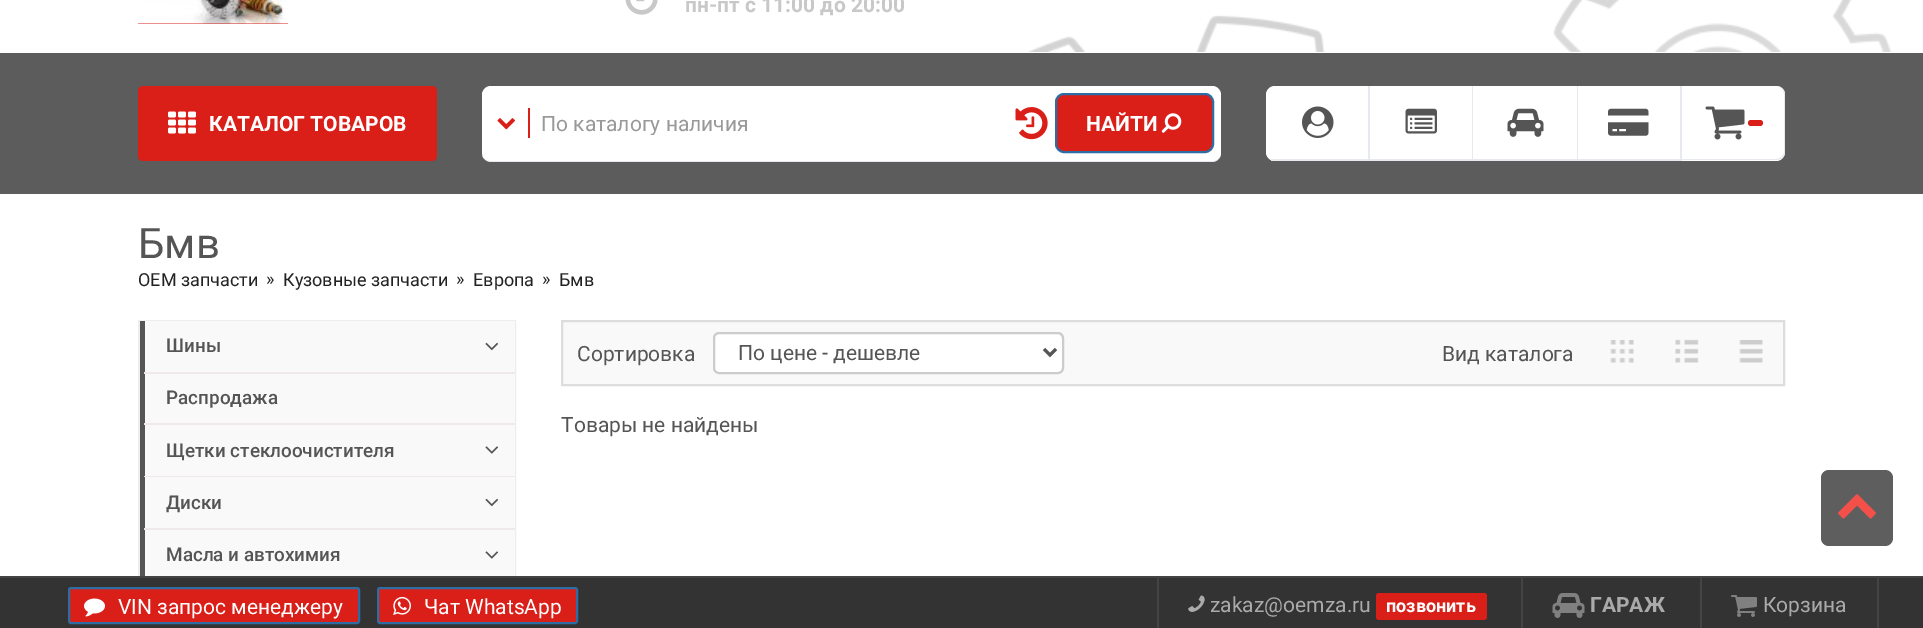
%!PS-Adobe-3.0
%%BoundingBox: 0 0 1923 628
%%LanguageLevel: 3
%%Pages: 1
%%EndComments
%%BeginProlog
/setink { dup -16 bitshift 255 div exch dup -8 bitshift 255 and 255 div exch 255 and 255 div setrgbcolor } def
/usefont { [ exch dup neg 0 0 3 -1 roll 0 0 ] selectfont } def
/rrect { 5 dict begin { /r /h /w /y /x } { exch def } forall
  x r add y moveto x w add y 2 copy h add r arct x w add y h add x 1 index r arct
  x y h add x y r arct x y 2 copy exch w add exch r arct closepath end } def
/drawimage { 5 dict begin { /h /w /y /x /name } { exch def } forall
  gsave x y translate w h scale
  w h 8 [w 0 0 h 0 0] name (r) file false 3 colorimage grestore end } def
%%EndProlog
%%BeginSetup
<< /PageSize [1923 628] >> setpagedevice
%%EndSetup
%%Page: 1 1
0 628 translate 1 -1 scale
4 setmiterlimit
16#FFFFFF setink
0 0 1923 628 rectfill
(img1.raw) 1028 0 864 52 drawimage
16#DA1E18 setink
138 23 150 1 rectfill
(img2.raw) 138 0 150 24 drawimage
(img3.raw) 625 0 33 15 drawimage
/Roboto-Bold 21 usefont
16#C8C8C8 setink
685 12 moveto (пн-пт с 11:00 до 20:00) show
16#5C5C5C setink
0 53 1923 141 rectfill
16#DA1E18 setink
138 86 299 75 5 rrect fill
(img4.raw) 168 111 28 23 drawimage
16#FFFFFF setink
209 131 moveto (КАТАЛОГ ТОВАРОВ) show
16#E6EAEF setink
482 155 moveto 483 159 487 162 491 162 curveto 1212 162 lineto 1217 162 1221 158 1221 153 curveto 1221 152 lineto 1221 156 1217 160 1212 160 curveto 490 160 lineto 487 160 484 158 482 155 curveto closepath fill
16#FFFFFF setink
482 86 739 75 9 rrect fill
(img5.raw) 497 118 18 12 drawimage
16#DA1E18 setink
528 108 2 30 rectfill
gsave
542 111 661 24 rectclip
/Roboto-Regular 21 usefont
16#999999 setink
541 131 moveto (По каталогу наличия) show
grestore
(img6.raw) 1015 107 33 33 drawimage
1056 94 157 58 8 rrect gsave fill grestore
16#2E6DA4 setink
2 setlinewidth
stroke
16#FFFFFF setink
1086 131 moveto (НАЙТИ) show
(img7.raw) 1161 113 21 20 drawimage
1275 86 moveto 1370 86 lineto 1370 161 lineto 1275 161 lineto 1270 161 1266 157 1266 152 curveto 1266 95 lineto 1266 90 1270 86 1275 86 curveto closepath fill
16#E6EAEF setink
1368 86 2 75 rectfill
1271 159 99 2 rectfill
(img8.raw) 1302 106 32 32 drawimage
[
    [1370 86 102 73 16#FFFFFF]
    [1472 86 1 75 16#E6EAEF]
    [1370 159 103 2 16#E6EAEF]
] { aload pop setink rectfill } forall
(img9.raw) 1405 108 32 26 drawimage
[
    [1473 86 104 73 16#FFFFFF]
    [1577 86 1 75 16#E6EAEF]
    [1473 159 105 2 16#E6EAEF]
] { aload pop setink rectfill } forall
(img10.raw) 1507 108 37 29 drawimage
[
    [1578 86 102 73 16#FFFFFF]
    [1680 86 2 75 16#E6EAEF]
    [1578 159 104 2 16#E6EAEF]
] { aload pop setink rectfill } forall
(img11.raw) 1608 108 41 28 drawimage
16#FFFFFF setink
1682 86 moveto 1776 86 lineto 1781 86 1785 90 1785 95 curveto 1785 152 lineto 1785 157 1781 161 1776 161 curveto 1682 161 lineto closepath fill
16#E6EAEF setink
1682 86 moveto 1776 86 lineto 1781 86 1785 90 1785 94 curveto 1785 152 lineto 1785 156 1781 160 1776 160 curveto 1682 160 lineto closepath 1682 86 moveto 1776 86 lineto 1780 86 1784 90 1784 94 curveto 1784 152 lineto 1784 156 1780 159 1776 159 curveto 1682 159 lineto closepath eofill
(img12.raw) 1705 106 40 34 drawimage
16#DA1E18 setink
1748 120 15 6 3 rrect fill
/Roboto-Regular 42 usefont
16#555555 setink
138 258 moveto (Бмв) show
/Roboto-Regular 18 usefont
16#222222 setink
[
    [(OEM запчасти) 138 286]
    [(») 266 285]
    [(Кузовные запчасти) 283 286]
    [(») 456 285]
    [(Европа) 473 286]
    [(») 542 285]
    [(Бмв) 559 286]
] { aload pop moveto show } forall
16#EEEEEE setink
139 321 376 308 rectstroke
[
    [145 321 370 51 16#F9F9F9]
    [140 321 5 261 16#555555]
    [144 372 371 2 16#EFE9E9]
] { aload pop setink rectfill } forall
/Roboto-Medium 18.9 usefont
16#555555 setink
166 352 moveto (Шины) show
(img13.raw) 485 342 13 9 drawimage
16#F9F9F9 setink
145 374 370 49 rectfill
16#EFE9E9 setink
144 423 371 2 rectfill
16#555555 setink
166 404 moveto (Распродажа) show
16#F9F9F9 setink
145 425 370 51 rectfill
16#EFE9E9 setink
144 476 371 1 rectfill
16#555555 setink
166 457 moveto (Щетки стеклоочистителя) show
(img14.raw) 485 446 14 8 drawimage
16#F9F9F9 setink
145 477 370 51 rectfill
16#EFE9E9 setink
144 528 371 2 rectfill
16#555555 setink
166 509 moveto (Диски) show
(img13.raw) 485 498 13 9 drawimage
16#F9F9F9 setink
145 530 370 46 rectfill
16#555555 setink
166 561 moveto (Масла и автохимия) show
(img14.raw) 485 551 14 8 drawimage
16#F9F9F9 setink
562 321 moveto 1784 321 lineto 1784 385 lineto 562 385 lineto closepath gsave fill grestore
16#DDDDDD setink
stroke
/Roboto-Regular 21 usefont
16#555555 setink
577 361 moveto (Сортировка) show
16#FFFFFF setink
713 332 351 42 6 rrect fill
16#ECECEC setink
718 334 moveto 1058 334 lineto 1060 334 1062 337 1062 339 curveto 1062 336 1060 333 1057 333 curveto 719 333 lineto 716 333 714 336 714 339 curveto 714 337 716 334 718 334 curveto closepath fill
16#CCCCCC setink
714 333 349 40 5 rrect stroke
16#555555 setink
3 setlinewidth
1044 349 moveto 1050 355 lineto 1056 349 lineto stroke
738 360 moveto (По цене - дешевле) show
1442 361 moveto (Вид каталога) show
(img15.raw) 1610 340 24 23 drawimage
(img16.raw) 1675 339 24 24 drawimage
(img17.raw) 1739 340 24 23 drawimage
561 432 moveto (Товары не найдены) show
16#5E5E5E setink
1821 470 72 76 8 rrect fill
(img18.raw) 1838 494 38 25 drawimage
16#333333 setink
0 578 1923 50 rectfill
16#444444 setink
0 576 1923 2 rectfill
16#DA1E18 setink
69 588 290 35 2 rrect gsave fill grestore
16#2E6DA4 setink
2 setlinewidth
stroke
(img19.raw) 84 598 21 19 drawimage
16#FFFFFF setink
118 614 moveto (VIN запрос менеджеру) show
16#DA1E18 setink
378 588 199 35 2 rrect gsave fill grestore
16#2E6DA4 setink
stroke
(img20.raw) 393 596 18 19 drawimage
16#FFFFFF setink
424 614 moveto (Чат WhatsApp) show
16#444444 setink
1877 578 2 50 rectfill
1157 578 2 50 rectfill
(img21.raw) 1188 595 17 17 drawimage
16#AAAAAA setink
1210 612 moveto (zakaz@oemza.ru) show
16#DA1E18 setink
1376 593 111 27 3 rrect fill
/Roboto-Bold 18 usefont
16#FFFFFF setink
1386 612 moveto (позвонить) show
16#444444 setink
1521 578 2 50 rectfill
(img22.raw) 1552 593 33 25 drawimage
/Roboto-Bold 21 usefont
16#AAAAAA setink
1590 612 moveto (ГАРАЖ) show
16#444444 setink
1700 578 2 50 rectfill
(img23.raw) 1731 595 26 22 drawimage
/Roboto-Regular 21 usefont
16#AAAAAA setink
1763 612 moveto (Корзина) show
showpage
%%EOF
